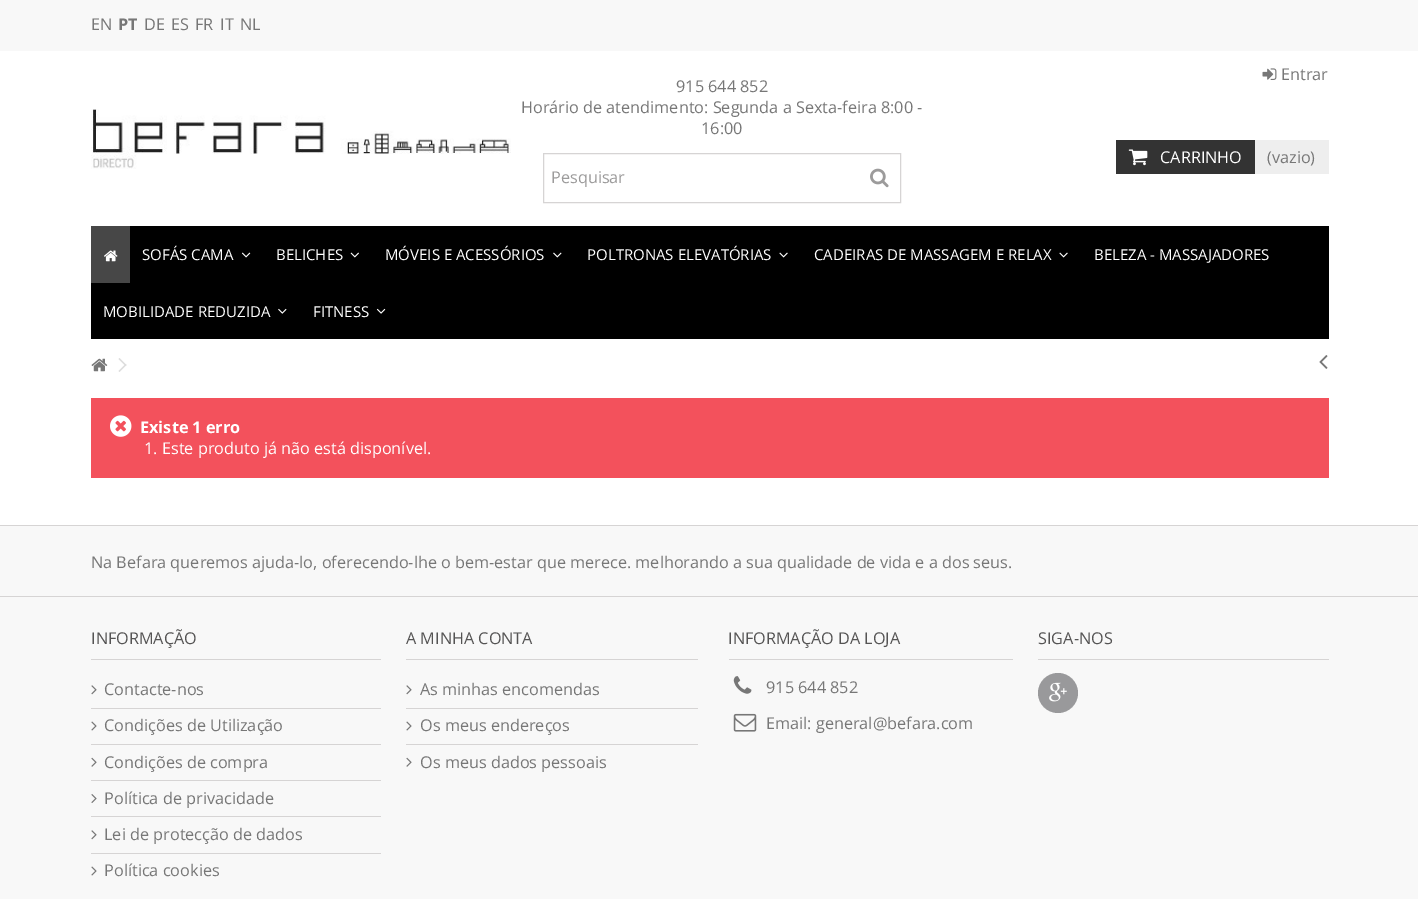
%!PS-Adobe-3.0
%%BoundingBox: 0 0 1418 899
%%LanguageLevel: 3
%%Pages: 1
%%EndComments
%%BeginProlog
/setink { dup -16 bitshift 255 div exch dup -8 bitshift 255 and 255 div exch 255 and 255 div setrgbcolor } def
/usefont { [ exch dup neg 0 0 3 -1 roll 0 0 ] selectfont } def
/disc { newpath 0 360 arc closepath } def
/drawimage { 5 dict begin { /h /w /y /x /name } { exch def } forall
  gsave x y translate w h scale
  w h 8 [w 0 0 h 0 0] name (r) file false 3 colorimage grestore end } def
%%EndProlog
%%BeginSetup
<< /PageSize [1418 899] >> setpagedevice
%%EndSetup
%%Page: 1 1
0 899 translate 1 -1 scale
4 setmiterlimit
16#FFFFFF setink
0 0 1418 899 rectfill
16#F8F8F8 setink
0 0 1418 51 rectfill
/OpenSans-Regular 16.25 usefont
16#777777 setink
91 30 moveto (EN) show
/OpenSans-Bold 16.25 usefont
118 30 moveto (PT) show
/OpenSans-Regular 16.25 usefont
[
    [(DE) 144 30]
    [(ES) 171 30]
    [(FR) 195 30]
    [(IT) 220 30]
    [(NL) 240 30]
] { aload pop moveto show } forall
(img1.raw) 1262 68 15 12 drawimage
1281 80 moveto (Entrar) show
(img2.raw) 91 109 420 60 drawimage
[
    [(915 644 852) 676 92]
    [(Horário de atendimento: Segunda a Sexta-feira 8:00 -) 521 113]
    [(16:00) 701 134]
] { aload pop moveto show } forall
16#D6D4D4 setink
543.5 153.5 357 49 rectstroke
16#9C9B9B setink
551 183 moveto (Pesquisar) show
(img3.raw) 870 168 19 20 drawimage
16#333333 setink
1116 140 139 34 rectfill
(img4.raw) 1128 149 20 17 drawimage
16#FFFFFF setink
1160 163 moveto (CARRINHO) show
16#EEEEEE setink
1255 140 74 34 rectfill
16#777777 setink
1267 163 moveto (\(vazio\)) show
16#000000 setink
91 226 1238 113 rectfill
16#474747 setink
91 226 39 57 rectfill
(img5.raw) 104 250 14 12 drawimage
/OpenSans-Regular 15 usefont
16#FFFFFF setink
142 260 moveto (SOFÁS CAMA) show
(img6.raw) 241 252 10 6 drawimage
276 260 moveto (BELICHES) show
(img7.raw) 350 252 9 6 drawimage
385 260 moveto (MÓVEIS E ACESSÓRIOS) show
(img8.raw) 553 252 9 6 drawimage
587 260 moveto (POLTRONAS ELEVATÓRIAS) show
(img9.raw) 779 252 9 6 drawimage
814 260 moveto (CADEIRAS DE MASSAGEM E RELAX) show
(img9.raw) 1059 252 9 6 drawimage
1094 260 moveto (BELEZA - MASSAJADORES) show
103 317 moveto (MOBILIDADE REDUZIDA) show
(img10.raw) 278 308 9 6 drawimage
313 317 moveto (FITNESS) show
(img11.raw) 376 308 10 6 drawimage
(img12.raw) 91 358 17 14 drawimage
16#DDDDDD setink
119.5 358 moveto 126.5 365 lineto 125.5 366 lineto 118.5 359 lineto closepath fill
125.5 364 moveto 126.5 365 lineto 119.5 372 lineto 118.5 371 lineto closepath fill
(img13.raw) 1319 355 9 14 drawimage
16#F3515C setink
91 398 1238 80 rectfill
(img14.raw) 110 415 22 22 drawimage
/OpenSans-Bold 16.25 usefont
16#FFFFFF setink
140 433 moveto (Existe 1 erro) show
/OpenSans-Regular 16.25 usefont
144 454 moveto (1. Este produto já não está disponível.) show
16#F8F8F8 setink
0 526 1418 70 rectfill
16#D6D4D4 setink
0 525 1418 1 rectfill
16#777777 setink
91 568 moveto (Na Befara queremos ajuda-lo, oferecendo-lhe o bem-estar que merece. melhorando a sua qualidade de vida e a dos seus.) show
[
    [0 597 1418 302 16#F8F8F8]
    [0 596 1418 1 16#D6D4D4]
    [91 659 290 1 16#D6D4D4]
] { aload pop setink rectfill } forall
16#555454 setink
91 644 moveto (INFORMAÇÃO) show
(img15.raw) 91 685 6 10 drawimage
16#777777 setink
104 695 moveto (Contacte-nos) show
16#D6D4D4 setink
91 708 290 1 rectfill
(img16.raw) 91 721 6 10 drawimage
16#777777 setink
104 731 moveto (Condições de Utilização) show
16#D6D4D4 setink
91 744 290 1 rectfill
(img17.raw) 91 757 6 10 drawimage
16#777777 setink
104 768 moveto (Condições de compra) show
16#D6D4D4 setink
91 780 290 1 rectfill
(img18.raw) 91 794 6 9 drawimage
16#777777 setink
104 804 moveto (Política de privacidade) show
16#D6D4D4 setink
91 816 290 1 rectfill
(img15.raw) 91 830 6 10 drawimage
16#777777 setink
104 840 moveto (Lei de protecção de dados) show
16#D6D4D4 setink
91 853 290 1 rectfill
(img16.raw) 91 866 6 10 drawimage
16#777777 setink
104 876 moveto (Política cookies) show
16#D6D4D4 setink
406 659 292 1 rectfill
16#555454 setink
406 644 moveto (A MINHA CONTA) show
(img15.raw) 406 685 6 10 drawimage
16#777777 setink
420 695 moveto (As minhas encomendas) show
16#D6D4D4 setink
406 708 292 1 rectfill
(img16.raw) 406 721 6 10 drawimage
16#777777 setink
420 731 moveto (Os meus endereços) show
16#D6D4D4 setink
406 744 292 1 rectfill
(img17.raw) 406 757 6 10 drawimage
16#777777 setink
420 768 moveto (Os meus dados pessoais) show
16#D6D4D4 setink
729 659 284 1 rectfill
16#555454 setink
728 644 moveto (INFORMAÇÃO DA LOJA) show
(img19.raw) 733 676 19 18 drawimage
16#777777 setink
766 693 moveto (915 644 852) show
(img20.raw) 733 713 24 19 drawimage
766 729 moveto (Email: general@befara.com) show
16#D6D4D4 setink
1038 659 291 1 rectfill
16#555454 setink
1038 644 moveto (SIGA-NOS) show
16#99999B setink
1058 693 20 disc fill
(img21.raw) 1049 682 18 20 drawimage
showpage
%%EOF
